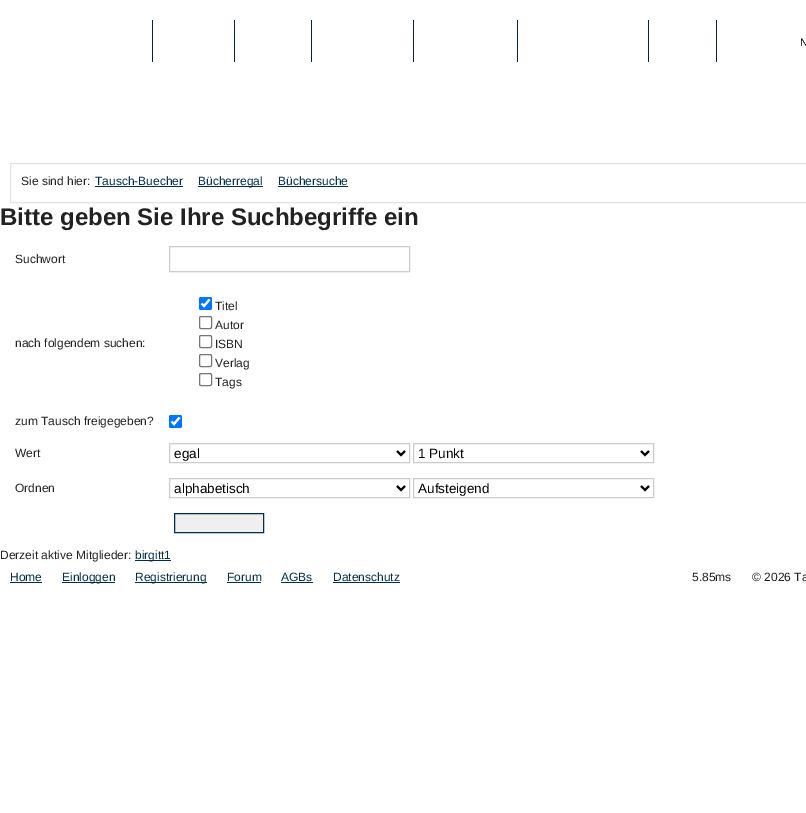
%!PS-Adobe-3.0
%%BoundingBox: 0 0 806 813
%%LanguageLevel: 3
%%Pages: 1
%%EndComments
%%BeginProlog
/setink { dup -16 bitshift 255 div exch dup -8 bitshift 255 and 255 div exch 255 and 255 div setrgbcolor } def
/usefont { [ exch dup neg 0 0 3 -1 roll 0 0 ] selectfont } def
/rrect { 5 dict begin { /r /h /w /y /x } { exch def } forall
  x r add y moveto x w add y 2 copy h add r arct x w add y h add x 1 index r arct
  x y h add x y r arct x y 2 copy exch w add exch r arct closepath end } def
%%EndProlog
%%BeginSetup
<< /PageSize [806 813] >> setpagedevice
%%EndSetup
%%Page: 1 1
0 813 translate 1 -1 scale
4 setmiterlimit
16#FFFFFF setink
0 0 806 813 rectfill
[
    [152 20 1 42 16#00253B]
    [234 20 1 42 16#00253B]
    [311 20 1 42 16#00253B]
    [413 20 1 42 16#00253B]
    [517 20 1 42 16#00253B]
    [648 20 1 42 16#00253B]
    [716 20 1 42 16#00253B]
] { aload pop setink rectfill } forall
/LiberationSans-Regular 11 usefont
16#000000 setink
800 46 moveto (N) show
16#E3E3E3 setink
10.5 163.5 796 39 rectstroke
/LiberationSans-Regular 12 usefont
16#222222 setink
21 185 moveto (Sie sind hier:) show
16#012F4A setink
95 185 moveto (Tausch-Buecher) show
95 186 88 1 rectfill
198 186 65 1 rectfill
198 185 moveto (Bücherregal) show
278 185 moveto (Büchersuche) show
278 186 70 1 rectfill
/LiberationSans-Bold 24 usefont
16#222222 setink
0 225 moveto (Bitte geben Sie Ihre Suchbegriffe ein) show
/LiberationSans-Regular 12 usefont
15 263 moveto (Suchwort) show
16#CCCCCC setink
169.5 246.5 240 25 rectstroke
16#222222 setink
15 347 moveto (nach folgendem suchen:) show
16#0075FF setink
199 297 13 13 2 rrect fill
16#FFFFFF setink
2.1 setlinewidth
201.5 303.5 moveto 204 306 lineto 209.5 299.5 lineto stroke
16#222222 setink
215 310 moveto (Titel) show
16#767676 setink
1 setlinewidth
199.5 316.5 12 12 1.5 rrect stroke
16#222222 setink
215 329 moveto (Autor) show
16#767676 setink
199.5 335.5 12 12 1.5 rrect stroke
16#222222 setink
215 348 moveto (ISBN) show
16#767676 setink
199.5 354.5 12 12 1.5 rrect stroke
16#222222 setink
215 367 moveto (Verlag) show
16#767676 setink
199.5 373.5 12 12 1.5 rrect stroke
16#222222 setink
215 386 moveto (Tags) show
15 425 moveto (zum Tausch freigegeben?) show
16#0075FF setink
169 415 13 13 2 rrect fill
16#FFFFFF setink
2.1 setlinewidth
171.5 421.5 moveto 174 424 lineto 179.5 417.5 lineto stroke
16#222222 setink
15 457 moveto (Wert) show
16#CCCCCC setink
1 setlinewidth
169.5 443.5 240 19 rectstroke
16#000000 setink
2 setlinewidth
397 451 moveto 401 455 lineto 405 451 lineto stroke
/LiberationSans-Regular 13.5 usefont
174 458 moveto (egal) show
16#CCCCCC setink
1 setlinewidth
413.5 443.5 240 19 rectstroke
16#000000 setink
2 setlinewidth
641 451 moveto 645 455 lineto 649 451 lineto stroke
418 458 moveto (1 Punkt) show
/LiberationSans-Regular 12 usefont
16#222222 setink
15 492 moveto (Ordnen) show
16#CCCCCC setink
1 setlinewidth
169.5 478.5 240 19 rectstroke
16#000000 setink
2 setlinewidth
397 486 moveto 401 490 lineto 405 486 lineto stroke
/LiberationSans-Regular 13.5 usefont
174 493 moveto (alphabetisch) show
16#CCCCCC setink
1 setlinewidth
413.5 478.5 240 19 rectstroke
16#000000 setink
2 setlinewidth
641 486 moveto 645 490 lineto 649 486 lineto stroke
418 493 moveto (Aufsteigend) show
16#EFEFEF setink
174.5 513.5 moveto 263.5 513.5 lineto 263.5 532.5 lineto 174.5 532.5 lineto closepath gsave fill grestore
16#012F4A setink
1 setlinewidth
stroke
/LiberationSans-Regular 12 usefont
16#222222 setink
0 559 moveto (Derzeit aktive Mitglieder:) show
16#012F4A setink
135 560 36 1 rectfill
135 559 moveto (birgitt1) show
10 581 moveto (Home) show
10 582 32 1 rectfill
62 582 53 1 rectfill
62 581 moveto (Einloggen) show
135 582 72 1 rectfill
135 581 moveto (Registrierung) show
227 581 moveto (Forum) show
227 582 34 1 rectfill
281 581 moveto (AGBs) show
281 582 32 1 rectfill
333 581 moveto (Datenschutz) show
333 582 67 1 rectfill
16#222222 setink
692 581 moveto (5.85ms) show
752 581 moveto (© 2026 Ta) show
showpage
%%EOF
